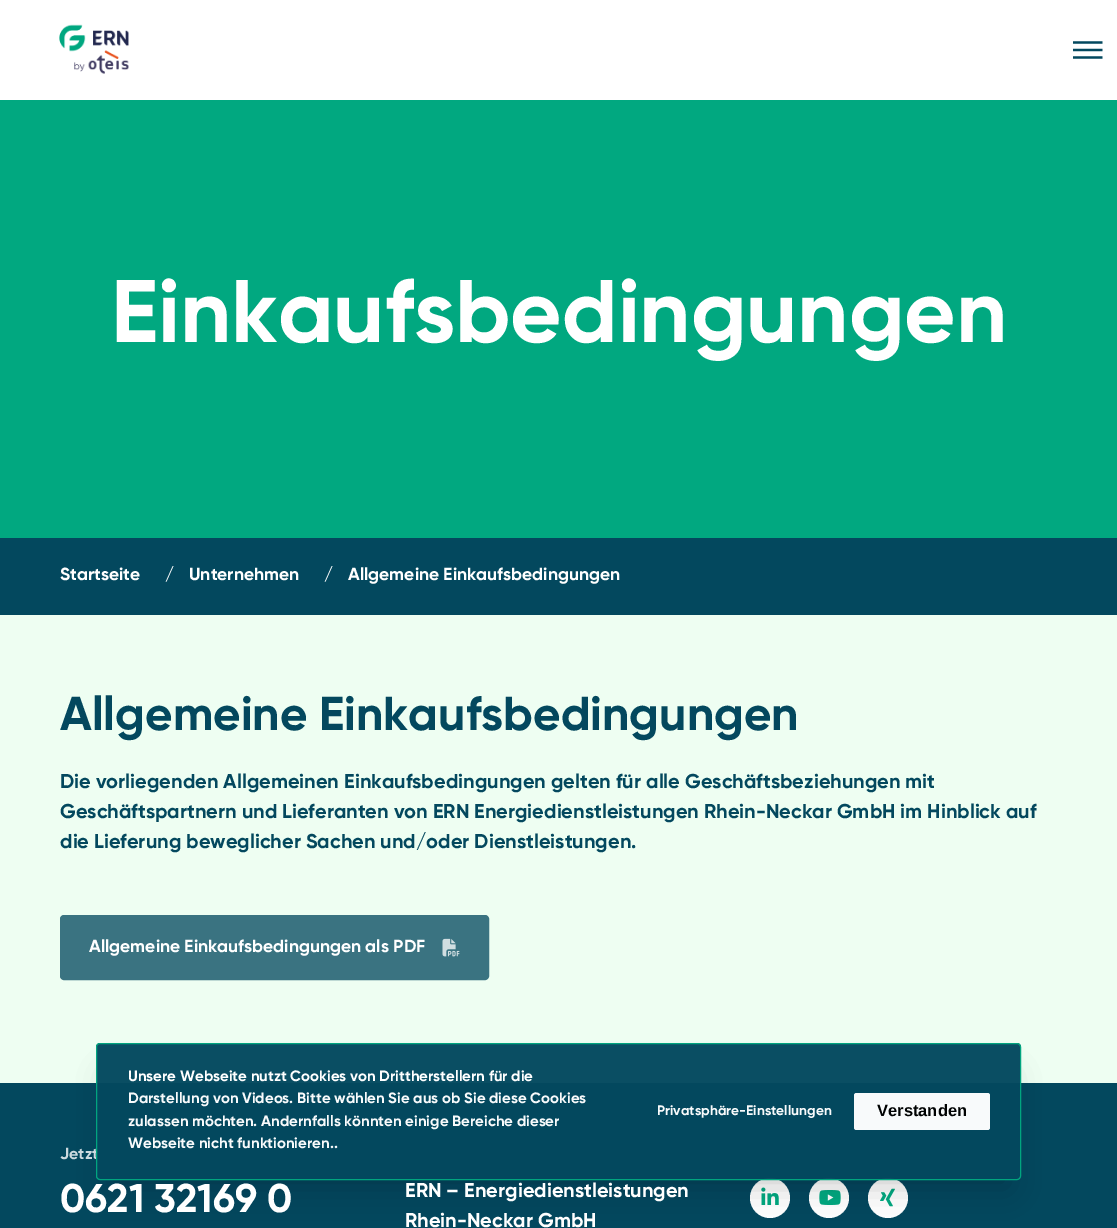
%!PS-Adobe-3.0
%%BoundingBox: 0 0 1117 1228
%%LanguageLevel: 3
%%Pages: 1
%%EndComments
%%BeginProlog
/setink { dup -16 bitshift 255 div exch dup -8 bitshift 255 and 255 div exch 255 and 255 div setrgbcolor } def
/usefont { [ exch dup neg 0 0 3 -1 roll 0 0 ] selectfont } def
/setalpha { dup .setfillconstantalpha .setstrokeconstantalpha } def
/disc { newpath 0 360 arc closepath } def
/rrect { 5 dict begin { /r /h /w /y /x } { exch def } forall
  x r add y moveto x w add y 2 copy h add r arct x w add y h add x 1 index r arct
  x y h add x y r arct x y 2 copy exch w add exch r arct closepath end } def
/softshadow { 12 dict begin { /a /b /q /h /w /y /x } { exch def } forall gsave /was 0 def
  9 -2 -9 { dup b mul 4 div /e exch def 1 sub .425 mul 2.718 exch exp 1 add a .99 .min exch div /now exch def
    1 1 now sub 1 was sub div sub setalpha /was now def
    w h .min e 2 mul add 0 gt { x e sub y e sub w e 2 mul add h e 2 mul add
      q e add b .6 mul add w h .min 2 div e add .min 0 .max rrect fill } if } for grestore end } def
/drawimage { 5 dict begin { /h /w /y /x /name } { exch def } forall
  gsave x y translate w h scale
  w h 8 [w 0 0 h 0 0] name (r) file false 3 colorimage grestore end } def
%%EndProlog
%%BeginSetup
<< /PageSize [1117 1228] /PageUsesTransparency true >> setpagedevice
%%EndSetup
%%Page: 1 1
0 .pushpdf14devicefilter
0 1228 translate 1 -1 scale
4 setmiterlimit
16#03485E setink
0 0 1117 1228 rectfill
16#FFFFFF setink
0 0 1117 100 rectfill
(img1.raw) 59 24 70 50 drawimage
(img2.raw) 1073 41 30 18 drawimage
16#EEFEF2 setink
0 615 1117 468 rectfill
16#01A880 setink
0 100 1117 438 rectfill
/Gilroy-Bold 88.75 usefont
16#FFFFFF setink
111 342 moveto (Einkaufsbedingungen) show
/Gilroy-Bold 17.5 usefont
[
    [(Startseite) 60 580]
    [(/) 165 580]
    [(Unternehmen) 189 580]
    [(/) 324 580]
    [(Allgemeine Einkaufsbedingungen) 348 580]
] { aload pop moveto show } forall
/Gilroy-Bold 47.5 usefont
16#03485E setink
60 730 moveto (Allgemeine Einkaufsbedingungen) show
/Gilroy-Bold 20 usefont
[
    [(Die vorliegenden Allgemeinen Einkaufsbedingungen gelten für alle Geschäftsbeziehungen mit) 60 788]
    [(Geschäftspartnern und Lieferanten von ERN Energiedienstleistungen Rhein-Neckar GmbH im Hinblick auf) 60 818]
    [(die Lieferung beweglicher Sachen und/oder Dienstleistungen.) 60 848]
] { aload pop moveto show } forall
16#3A7381 setink
61.5 916.5 426 62 2.5 rrect gsave fill grestore
3 setlinewidth
stroke
/Gilroy-Bold 17.5 usefont
16#FFFFFF setink
89 952 moveto (Allgemeine Einkaufsbedingungen als PDF) show
(img3.raw) 442 938 18 19 drawimage
770 1198 20 disc fill
(img4.raw) 761 1187 18 18 drawimage
829 1198 20 disc fill
(img5.raw) 819 1190 22 15 drawimage
888 1198 20 disc fill
(img6.raw) 880 1188 15 19 drawimage
gsave
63 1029 moveto 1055 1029 lineto 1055 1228 lineto 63 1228 lineto closepath 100 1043 moveto 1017 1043 lineto 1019 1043 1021 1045 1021 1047 curveto 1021 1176 lineto 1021 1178 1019 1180 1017 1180 curveto 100 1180 lineto 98 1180 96 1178 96 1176 curveto 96 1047 lineto 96 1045 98 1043 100 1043 curveto closepath eoclip newpath
16#000000 setink
109 1075 900 113 0 15 0.19 softshadow
grestore
/Gilroy-Bold 16 usefont
16#CDDADF setink
60 1159 moveto (Jetzt) show
0.97 setalpha
16#03485E setink
96 1043 925 137 4 rrect fill
16#01A880 setink
1 setlinewidth
96.5 1043.5 924 136 3.5 rrect stroke
/Gilroy-Bold 15 usefont
1 setalpha
16#FFFFFF setink
128 1081 moveto (Unsere Webseite nutzt Cookies von Drittherstellern für die) show
16#F8FAFB setink
[
    [(Darstellung von Videos. Bitte wählen Sie aus ob Sie diese Cookies) 128 1103]
    [(zulassen möchten. Andernfalls könnten einige Bereiche dieser) 128 1126]
    [(Webseite nicht funktionieren..) 128 1148]
] { aload pop moveto show } forall
/Gilroy-Bold 13.75 usefont
657 1115 moveto (Privatsphäre-Einstellungen) show
854 1093 136 37 2.5 rrect fill
/LiberationSans-Bold 16.5 usefont
16#000202 setink
877 1116 moveto (Verstanden) show
/Gilroy-Bold 40 usefont
16#FFFFFF setink
60 1212 moveto (0621 32169 0) show
/Gilroy-Bold 20 usefont
405 1197 moveto (ERN – Energiedienstleistungen) show
405 1227 moveto (Rhein-Neckar GmbH) show
.poppdf14devicefilter showpage
%%EOF
